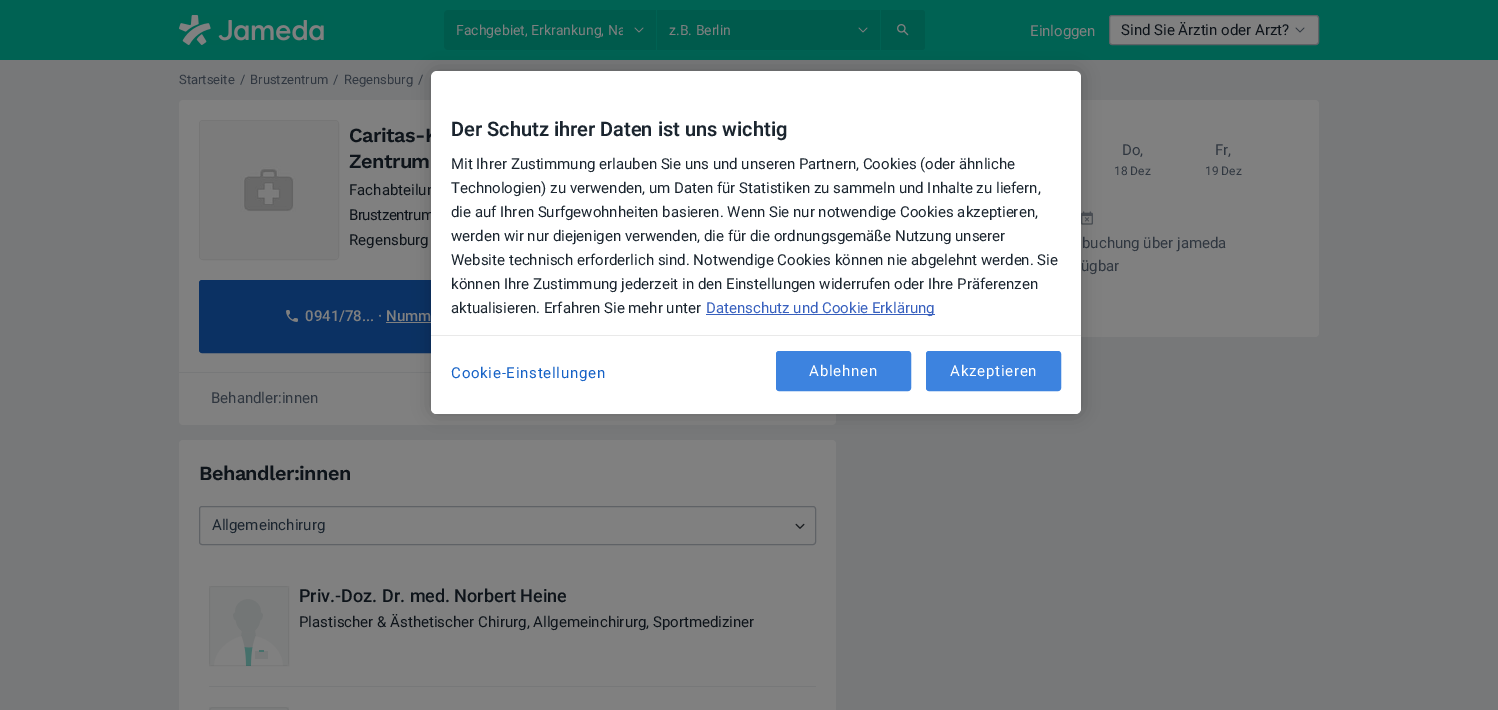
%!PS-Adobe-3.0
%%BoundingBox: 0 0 1498 710
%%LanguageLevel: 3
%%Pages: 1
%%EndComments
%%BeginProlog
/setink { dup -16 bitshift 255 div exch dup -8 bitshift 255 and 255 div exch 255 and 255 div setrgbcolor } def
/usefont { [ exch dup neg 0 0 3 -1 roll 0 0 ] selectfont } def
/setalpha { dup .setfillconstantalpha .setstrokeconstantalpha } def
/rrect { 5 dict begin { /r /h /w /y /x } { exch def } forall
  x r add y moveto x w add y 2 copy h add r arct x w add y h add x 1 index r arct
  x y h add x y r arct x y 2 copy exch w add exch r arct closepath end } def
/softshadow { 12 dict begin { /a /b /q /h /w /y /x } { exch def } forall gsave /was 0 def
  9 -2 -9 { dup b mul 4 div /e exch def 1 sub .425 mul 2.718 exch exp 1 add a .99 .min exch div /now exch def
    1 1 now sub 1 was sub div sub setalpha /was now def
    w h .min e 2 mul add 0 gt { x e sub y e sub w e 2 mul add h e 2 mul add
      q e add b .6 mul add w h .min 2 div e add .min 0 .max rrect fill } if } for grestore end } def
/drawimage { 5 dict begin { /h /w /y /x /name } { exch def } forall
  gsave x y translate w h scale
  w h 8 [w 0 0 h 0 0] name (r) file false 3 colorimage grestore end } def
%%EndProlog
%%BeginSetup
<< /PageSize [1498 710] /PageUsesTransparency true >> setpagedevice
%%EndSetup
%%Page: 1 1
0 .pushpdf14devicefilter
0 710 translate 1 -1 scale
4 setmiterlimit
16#777879 setink
0 0 1498 710 rectfill
16#006253 setink
0 0 1498 60 rectfill
(img1.raw) 179 15 145 30 drawimage
16#005A4C setink
448 10 moveto 656 10 lineto 656 50 lineto 448 50 lineto 446 50 444 48 444 46 curveto 444 14 lineto 444 12 446 10 448 10 curveto closepath fill
gsave
456 22 167 16 rectclip
/Roboto-Regular 14 usefont
16#808080 setink
456 35 moveto (Fachgebiet, Erkrankung, Na) show
grestore
(img2.raw) 634 27 10 6 drawimage
657 10 223 40 rectfill
/Roboto-Regular 14 usefont
16#808080 setink
669 35 moveto (z.B. Berlin) show
(img2.raw) 858 27 10 6 drawimage
16#005A4C setink
881 10 moveto 922 10 lineto 923.5 10 925 11.5 925 13 curveto 925 47 lineto 925 48.5 923.5 50 922 50 curveto 881 50 lineto closepath fill
(img3.raw) 897 24 12 12 drawimage
/Roboto-Regular 15 usefont
16#808080 setink
1030 36 moveto (Einloggen) show
1109.5 15.5 209 29 2.5 rrect gsave fill grestore
16#5F6266 setink
stroke
16#0E141A setink
1121 35 moveto (Sind Sie Ärztin oder Arzt?) show
(img4.raw) 1295 27 10 6 drawimage
/Roboto-Regular 13 usefont
16#303740 setink
[
    [(Startseite) 179 84]
    [(/) 240 84]
    [(Brustzentrum) 250 84]
    [(/) 333 84]
    [(Regensburg) 344 84]
    [(/) 418 84]
] { aload pop moveto show } forall
16#808080 setink
183 100 moveto 832 100 lineto 834 100 836 102 836 104 curveto 836 373 lineto 179 373 lineto 179 104 lineto 179 102 181 100 183 100 curveto closepath fill
16#777879 setink
179 372 252 1 rectfill
16#767676 setink
199.5 120.5 139 139 3.5 rrect stroke
(img5.raw) 200 121 138 138 drawimage
/WorkSans-SemiBold 20 usefont
16#0E141A setink
349 142 moveto -0.6 0 (Caritas-K) ashow
349 168 moveto -0.6 0 (Zentrum) ashow
/Roboto-Regular 15 usefont
349 195 moveto (Fachabteilun) show
349 220 moveto -0.5 0 (Brustzentrum) ashow
349 245 moveto (Regensburg) show
16#0B3163 setink
199.5 280.5 394 72 2.5 rrect gsave fill grestore
stroke
(img6.raw) 286 310 12 12 drawimage
/Roboto-Medium 15 usefont
16#808080 setink
305 321 moveto (0941/78... · Numm) show
386 322 45 1 rectfill
179 373 moveto 836 373 lineto 836 421 lineto 836 423 834 425 832 425 curveto 183 425 lineto 181 425 179 423 179 421 curveto closepath fill
/Roboto-Regular 15 usefont
16#303740 setink
211 403 moveto (Behandler:innen) show
16#808080 setink
179 440 657 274 4 rrect fill
/WorkSans-SemiBold 20 usefont
16#0E141A setink
199 480 moveto -0.6 0 (Behandler:innen) ashow
16#5F6266 setink
199.5 506.5 616 38 2.5 rrect stroke
/Roboto-Regular 15 usefont
16#1B252F setink
212 530 moveto (Allgemeinchirurg) show
(img7.raw) 795 523 10 6 drawimage
16#777879 setink
209 686 607 1 rectfill
(img8.raw) 209 586 80 80 drawimage
0.05 setalpha
16#000000 setink
209.5 586.5 79 79 rectstroke
/Roboto-Medium 18 usefont
1 setalpha
16#0E141A setink
299 602 moveto (Priv.-Doz. Dr. med. Norbert Heine) show
/Roboto-Regular 15 usefont
299 627 moveto (Plastischer & Ästhetischer Chirurg, Allgemeinchirurg, Sportmediziner) show
16#7B7C7C setink
209 707 80 3 rectfill
16#757676 setink
209.5 707.5 79 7 3.5 rrect stroke
16#808080 setink
856 100 463 237 4 rrect fill
16#303740 setink
1122 155 moveto (Do,) show
/Roboto-Regular 12 usefont
1114 175 moveto (18 Dez) show
/Roboto-Regular 15 usefont
1215 155 moveto (Fr,) show
/Roboto-Regular 12 usefont
1205 175 moveto (19 Dez) show
(img9.raw) 1081 211 12 14 drawimage
/Roboto-Regular 15 usefont
1082 248 moveto (buchung über jameda) show
1081 271 moveto (ügbar) show
16#000000 setink
431 71 650 343 6 9 0.2 softshadow
16#FFFFFF setink
431 71 650 343 6 rrect fill
/Roboto-SemiBold 20 usefont
16#1B252F setink
451 136 moveto (Der Schutz ihrer Daten ist uns wichtig) show
/Roboto-Regular 15 usefont
[
    [(Mit Ihrer Zustimmung erlauben Sie uns und unseren Partnern, Cookies \(oder ähnliche) 451 169]
    [(Technologien\) zu verwenden, um Daten für Statistiken zu sammeln und Inhalte zu liefern,) 451 193]
    [(die auf Ihren Surfgewohnheiten basieren. Wenn Sie nur notwendige Cookies akzeptieren,) 451 217]
    [(werden wir nur diejenigen verwenden, die für die ordnungsgemäße Nutzung unserer) 451 241]
    [(Website technisch erforderlich sind. Notwendige Cookies können nie abgelehnt werden. Sie) 451 265]
    [(können Ihre Zustimmung jederzeit in den Einstellungen widerrufen oder Ihre Präferenzen) 451 289]
    [(aktualisieren. Erfahren Sie mehr unter) 451 313]
] { aload pop moveto show } forall
16#3860BE setink
706 314 229 1 rectfill
706 313 moveto (Datenschutz und Cookie Erklärung) show
16#FFFFFF setink
431 335 moveto 1081 335 lineto 1081 408 lineto 1081 411.5 1078.5 414 1075 414 curveto 437 414 lineto 433.5 414 431 411.5 431 408 curveto closepath fill
16#E9E9E9 setink
431 335 650 1 rectfill
16#1662C6 setink
451 378 moveto 0.75 0 (Cookie-Einstellungen) ashow
16#3D83DF setink
776.5 351.5 134 39 2.5 rrect gsave fill grestore
stroke
16#FFFFFF setink
809 376 moveto 0.75 0 (Ablehnen) ashow
16#3D83DF setink
926.5 351.5 134 39 2.5 rrect gsave fill grestore
stroke
16#FFFFFF setink
950 376 moveto 0.75 0 (Akzeptieren) ashow
.poppdf14devicefilter showpage
%%EOF
